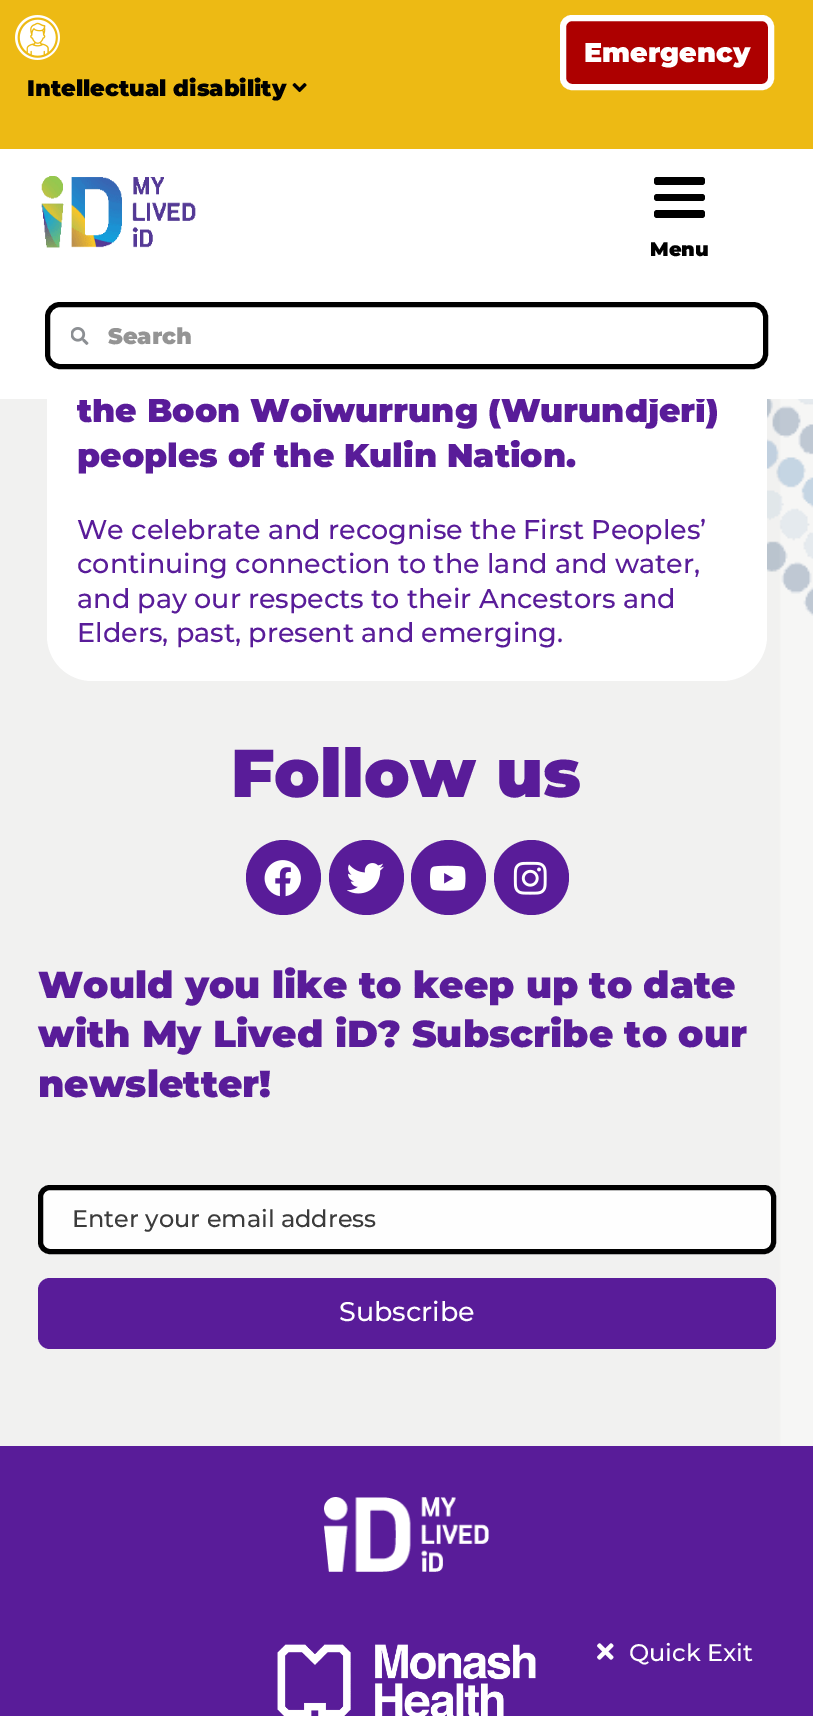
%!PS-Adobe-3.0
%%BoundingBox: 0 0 813 1716
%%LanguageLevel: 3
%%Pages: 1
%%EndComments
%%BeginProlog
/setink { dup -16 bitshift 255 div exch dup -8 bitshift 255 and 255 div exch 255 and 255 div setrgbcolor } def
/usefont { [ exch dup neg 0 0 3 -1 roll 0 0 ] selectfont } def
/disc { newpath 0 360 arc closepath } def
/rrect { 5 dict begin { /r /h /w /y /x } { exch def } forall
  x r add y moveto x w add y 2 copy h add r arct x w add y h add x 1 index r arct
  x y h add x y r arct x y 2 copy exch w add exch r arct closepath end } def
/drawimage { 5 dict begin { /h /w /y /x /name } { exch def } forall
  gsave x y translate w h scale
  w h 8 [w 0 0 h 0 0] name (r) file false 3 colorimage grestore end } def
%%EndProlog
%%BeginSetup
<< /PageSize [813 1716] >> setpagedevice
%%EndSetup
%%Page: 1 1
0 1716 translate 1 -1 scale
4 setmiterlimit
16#F6F6F5 setink
0 0 813 1716 rectfill
(img5.raw) 0 399 813 1047 drawimage
16#FFFFFF setink
47 179 720 502 45 rrect fill
/Montserrat-Black 33 usefont
16#591C99 setink
77 422 moveto (the Boon Woiwurrung \(Wurundjeri\)) show
16#FFFFFF setink
0 149 813 250 rectfill
16#EDBA14 setink
0 0 813 149 rectfill
16#AD0000 setink
563 18 208 69 9 rrect gsave fill grestore
16#FFFFFF setink
6 setlinewidth
stroke
/Montserrat-Black 27 usefont
584 62 moveto (Emergency) show
(img1.raw) 15 15 45 45 drawimage
/Montserrat-Black 22.5 usefont
16#000000 setink
27 96 moveto (Intellectual disability) show
(img2.raw) 292 83 15 10 drawimage
(img3.raw) 41 176 155 72 drawimage
654 177 51 8 3 rrect fill
654 194 51 7 3 rrect fill
654 210 51 8 3 rrect fill
/Montserrat-Black 19.5 usefont
650 256 moveto (Menu) show
5 setlinewidth
47.5 304.5 718 62 12.5 rrect stroke
(img4.raw) 71 327 18 18 drawimage
/Montserrat-Black 22.5 usefont
16#949494 setink
108 344 moveto (Search) show
/Montserrat-Black 33 usefont
16#591C99 setink
77 467 moveto (peoples of the Kulin Nation.) show
/Montserrat-Medium 27 usefont
[
    [(We celebrate and recognise the First Peoples’) 77 539]
    [(continuing connection to the land and water,) 77 573]
    [(and pay our respects to their Ancestors and) 77 608]
    [(Elders, past, present and emerging.) 77 642]
] { aload pop moveto show } forall
/Montserrat-Black 67.5 usefont
231 797 moveto (Follow us) show
283.5 877.5 37.5 disc fill
(img6.raw) 264 860 37 37 drawimage
366.5 877.5 37.5 disc fill
(img7.raw) 347 863 37 31 drawimage
448.5 877.5 37.5 disc fill
(img8.raw) 430 865 36 26 drawimage
531.5 877.5 37.5 disc fill
(img9.raw) 513 861 34 34 drawimage
/Montserrat-Black 37.5 usefont
[
    [(Would you like to keep up to date) 38 998]
    [(with My Lived iD? Subscribe to our) 38 1047]
    [(newsletter!) 38 1097]
] { aload pop moveto show } forall
16#FEFEFE setink
40.5 1187.5 733 64 9.5 rrect gsave fill grestore
16#000000 setink
stroke
/Montserrat-Medium 24 usefont
16#3B3B3B setink
72 1227 moveto (Enter your email address) show
16#591C99 setink
38 1278 738 71 12 rrect fill
/Montserrat-Medium 27 usefont
16#FFFFFF setink
339 1321 moveto (Subscribe) show
16#591C99 setink
0 1446 813 270 rectfill
(img10.raw) 324 1497 165 75 drawimage
(img11.raw) 277 1644 259 72 drawimage
(img12.raw) 597 1643 17 17 drawimage
/Montserrat-Medium 24 usefont
16#FFFFFF setink
629 1661 moveto (Quick Exit) show
showpage
%%EOF
